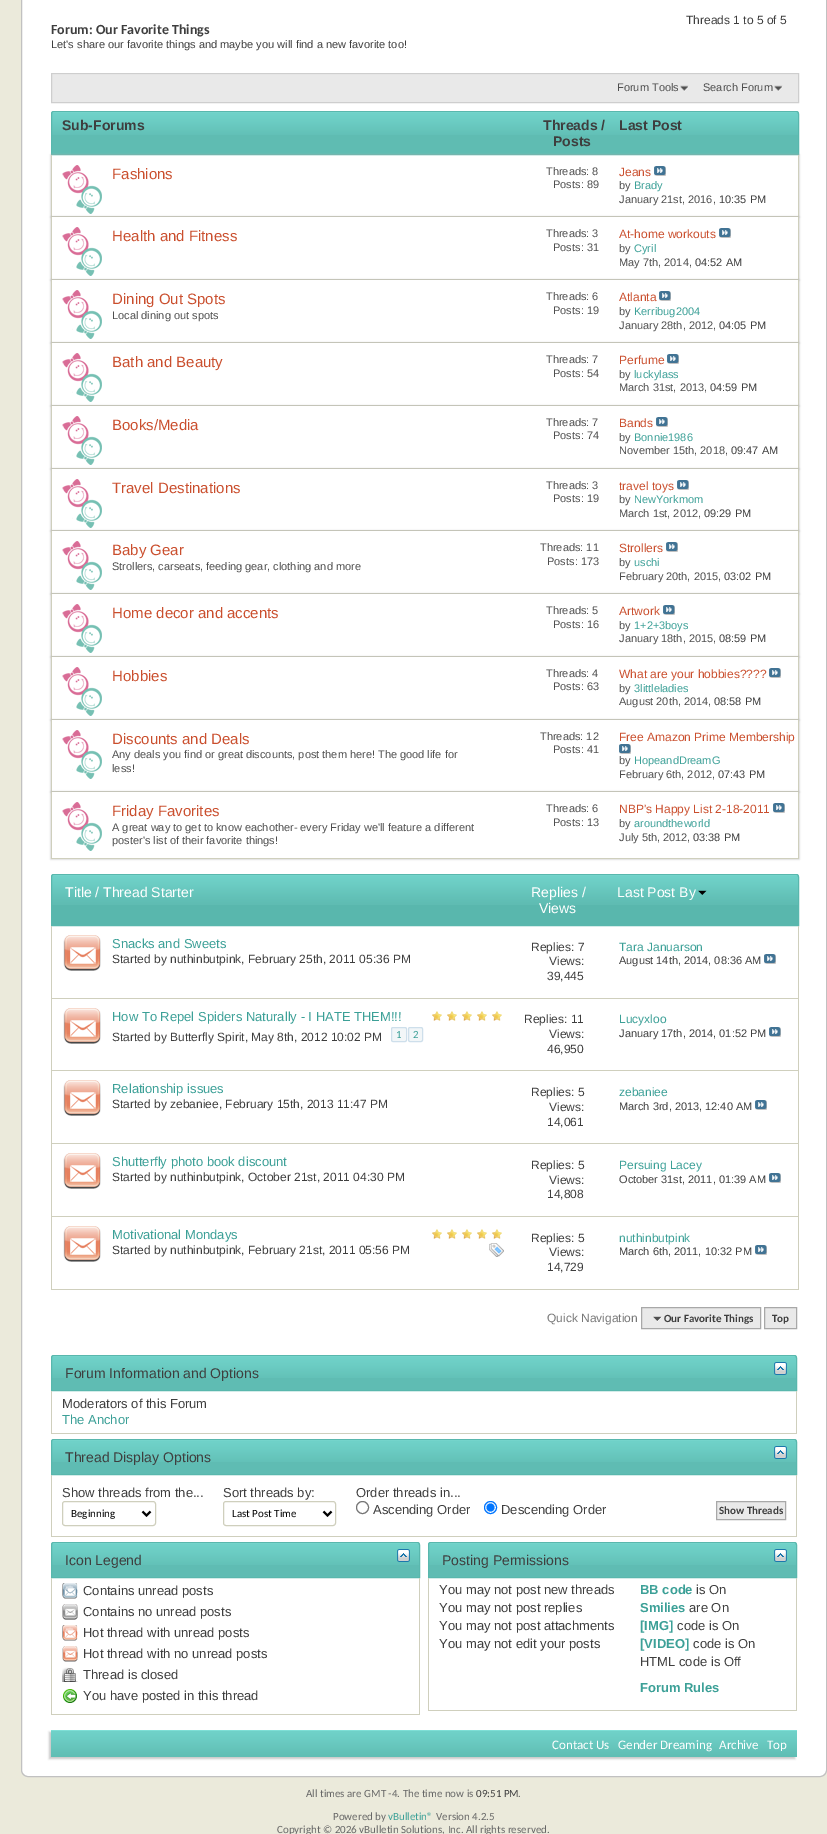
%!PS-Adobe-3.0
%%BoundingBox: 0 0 827 1834
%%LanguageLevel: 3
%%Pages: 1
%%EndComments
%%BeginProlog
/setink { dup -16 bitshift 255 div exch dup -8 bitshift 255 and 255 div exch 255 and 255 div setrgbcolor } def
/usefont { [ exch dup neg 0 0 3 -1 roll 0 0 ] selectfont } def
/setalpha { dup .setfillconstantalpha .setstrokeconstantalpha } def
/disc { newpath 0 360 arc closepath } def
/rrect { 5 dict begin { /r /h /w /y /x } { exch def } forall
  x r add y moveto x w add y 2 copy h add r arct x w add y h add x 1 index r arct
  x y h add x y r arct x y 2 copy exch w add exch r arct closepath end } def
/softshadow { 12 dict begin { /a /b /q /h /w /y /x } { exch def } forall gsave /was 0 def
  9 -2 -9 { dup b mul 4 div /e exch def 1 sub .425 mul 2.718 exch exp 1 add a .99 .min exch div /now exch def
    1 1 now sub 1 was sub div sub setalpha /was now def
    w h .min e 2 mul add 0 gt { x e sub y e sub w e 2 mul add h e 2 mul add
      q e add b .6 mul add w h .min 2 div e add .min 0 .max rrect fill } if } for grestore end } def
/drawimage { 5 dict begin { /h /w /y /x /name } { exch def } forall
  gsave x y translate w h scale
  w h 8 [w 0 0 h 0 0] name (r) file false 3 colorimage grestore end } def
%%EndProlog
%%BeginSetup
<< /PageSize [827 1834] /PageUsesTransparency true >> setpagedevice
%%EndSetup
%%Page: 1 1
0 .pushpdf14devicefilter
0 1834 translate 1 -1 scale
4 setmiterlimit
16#EBEADB setink
0 0 827 1834 rectfill
16#FFFFFF setink
21.5 -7.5 805 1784 6.5 rrect gsave fill grestore
16#C1C1C1 setink
stroke
/LiberationSans-Regular 12 usefont
16#3E3E3E setink
686 24 moveto (Threads 1 to 5 of 5) show
/Carlito-Bold 14 usefont
51 34 moveto (Forum: Our Favorite Things) show
/LiberationSans-Regular 11.05 usefont
51 48 moveto (Let's share our favorite things and maybe you will find a new favorite too!) show
16#E9E9E9 setink
52 75 746 27 rectfill
16#EDEDED setink
51 74 748 1 rectfill
16#CECECE setink
51.5 73.5 747 29 rectstroke
(img1.raw) 680 85 9 7 drawimage
/LiberationSans-Regular 11 usefont
16#4E4E4E setink
617 91 moveto (Forum Tools) show
(img1.raw) 774 85 9 7 drawimage
703 91 moveto (Search Forum) show
16#5FBCB2 setink
54 111 moveto 796 111 lineto 797.5 111 799 112.5 799 114 curveto 799 155 lineto 51 155 lineto 51 114 lineto 51 112.5 52.5 111 54 111 curveto closepath fill
(img2.raw) 51 112 748 23 drawimage
16#59B7AD setink
54 111.5 moveto 796 111.5 lineto 797.5 111.5 798.5 112.5 798.5 114 curveto 798.5 154.5 lineto 51.5 154.5 lineto 51.5 114 lineto 51.5 112.5 52.5 111.5 54 111.5 curveto closepath stroke
/LiberationSans-Bold 14 usefont
16#3E3E3E setink
[
    [(Sub-Forums) 62 130]
    [(Threads /) 543 130]
    [(Posts) 553 146]
    [(Last Post) 619 130]
] { aload pop moveto show } forall
gsave
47 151 moveto 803 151 lineto 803 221 lineto 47 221 lineto closepath 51 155 moveto 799 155 lineto 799 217 lineto 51 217 lineto closepath eoclip newpath
16#AEAEAE setink
51 155 748 62 0 1 1 softshadow
grestore
[
    [798 155 1 62 16#CFCFBD]
    [51 216 748 1 16#CFCFBD]
    [51 155 1 62 16#CFCFBD]
] { aload pop setink rectfill } forall
(img3.raw) 62 165 40 49 drawimage
/LiberationSans-Regular 15 usefont
16#CA4F2E setink
112 179 moveto (Fashions) show
/LiberationSans-Regular 11 usefont
16#4E4E4E setink
546 175 moveto (Threads: 8) show
553 188 moveto (Posts: 89) show
/LiberationSans-Regular 12 usefont
16#CA4F2E setink
619 176 moveto (Jeans) show
(img4.raw) 654 166 12 10 drawimage
/LiberationSans-Regular 11 usefont
16#4E4E4E setink
619 189 moveto (by) show
16#3CA097 setink
634 189 moveto (Brady) show
16#4E4E4E setink
619 203 moveto (January 21st, 2016,) show
16#3E3E3E setink
719 203 moveto (10:35 PM) show
16#AEAEAE setink
51 217 748 63 0 1 1 softshadow
[
    [52 217 746 62 16#FFFFFF]
    [798 217 1 63 16#CFCFBD]
    [51 279 748 1 16#CFCFBD]
    [51 217 1 63 16#CFCFBD]
] { aload pop setink rectfill } forall
(img3.raw) 62 227 40 49 drawimage
/LiberationSans-Regular 15 usefont
16#CA4F2E setink
112 241 moveto (Health and Fitness) show
/LiberationSans-Regular 11 usefont
16#4E4E4E setink
546 237 moveto (Threads: 3) show
553 251 moveto (Posts: 31) show
/LiberationSans-Regular 12 usefont
16#CA4F2E setink
619 238 moveto (At-home workouts) show
(img4.raw) 719 228 12 10 drawimage
/LiberationSans-Regular 11 usefont
16#4E4E4E setink
619 252 moveto (by) show
16#3CA097 setink
634 252 moveto (Cyril) show
16#4E4E4E setink
619 266 moveto (May 7th, 2014,) show
16#3E3E3E setink
695 266 moveto (04:52 AM) show
16#AEAEAE setink
51 280 748 63 0 1 1 softshadow
[
    [52 280 746 62 16#FFFFFF]
    [798 280 1 63 16#CFCFBD]
    [51 342 748 1 16#CFCFBD]
    [51 280 1 63 16#CFCFBD]
] { aload pop setink rectfill } forall
(img3.raw) 62 290 40 49 drawimage
/LiberationSans-Regular 15 usefont
16#CA4F2E setink
112 304 moveto (Dining Out Spots) show
/LiberationSans-Regular 11 usefont
16#4E4E4E setink
[
    [(Local dining out spots) 112 319]
    [(Threads: 6) 546 300]
    [(Posts: 19) 553 314]
] { aload pop moveto show } forall
/LiberationSans-Regular 12 usefont
16#CA4F2E setink
619 301 moveto (Atlanta) show
(img4.raw) 659 291 12 10 drawimage
/LiberationSans-Regular 11 usefont
16#4E4E4E setink
619 315 moveto (by) show
16#3CA097 setink
634 315 moveto (Kerribug2004) show
16#4E4E4E setink
619 329 moveto (January 28th, 2012,) show
16#3E3E3E setink
719 329 moveto (04:05 PM) show
16#AEAEAE setink
51 343 748 63 0 1 1 softshadow
[
    [52 343 746 62 16#FFFFFF]
    [798 343 1 63 16#CFCFBD]
    [51 405 748 1 16#CFCFBD]
    [51 343 1 63 16#CFCFBD]
] { aload pop setink rectfill } forall
(img3.raw) 62 353 40 49 drawimage
/LiberationSans-Regular 15 usefont
16#CA4F2E setink
112 367 moveto (Bath and Beauty) show
/LiberationSans-Regular 11 usefont
16#4E4E4E setink
546 363 moveto (Threads: 7) show
553 377 moveto (Posts: 54) show
/LiberationSans-Regular 12 usefont
16#CA4F2E setink
619 364 moveto (Perfume) show
(img4.raw) 667 354 12 10 drawimage
/LiberationSans-Regular 11 usefont
16#4E4E4E setink
619 378 moveto (by) show
16#3CA097 setink
634 378 moveto (luckylass) show
16#4E4E4E setink
619 391 moveto (March 31st, 2013,) show
16#3E3E3E setink
710 391 moveto (04:59 PM) show
16#AEAEAE setink
51 406 748 63 0 1 1 softshadow
[
    [52 406 746 62 16#FFFFFF]
    [798 406 1 63 16#CFCFBD]
    [51 468 748 1 16#CFCFBD]
    [51 406 1 63 16#CFCFBD]
] { aload pop setink rectfill } forall
(img3.raw) 62 416 40 49 drawimage
/LiberationSans-Regular 15 usefont
16#CA4F2E setink
112 430 moveto (Books/Media) show
/LiberationSans-Regular 11 usefont
16#4E4E4E setink
546 426 moveto (Threads: 7) show
553 439 moveto (Posts: 74) show
/LiberationSans-Regular 12 usefont
16#CA4F2E setink
619 427 moveto (Bands) show
(img4.raw) 656 417 12 10 drawimage
/LiberationSans-Regular 11 usefont
16#4E4E4E setink
619 441 moveto (by) show
16#3CA097 setink
634 441 moveto (Bonnie1986) show
16#4E4E4E setink
619 454 moveto (November 15th, 2018,) show
16#3E3E3E setink
731 454 moveto (09:47 AM) show
16#AEAEAE setink
51 469 748 62 0 1 1 softshadow
[
    [52 469 746 61 16#FFFFFF]
    [798 469 1 62 16#CFCFBD]
    [51 530 748 1 16#CFCFBD]
    [51 469 1 62 16#CFCFBD]
] { aload pop setink rectfill } forall
(img3.raw) 62 479 40 49 drawimage
/LiberationSans-Regular 15 usefont
16#CA4F2E setink
112 493 moveto (Travel Destinations) show
/LiberationSans-Regular 11 usefont
16#4E4E4E setink
546 489 moveto (Threads: 3) show
553 502 moveto (Posts: 19) show
/LiberationSans-Regular 12 usefont
16#CA4F2E setink
619 490 moveto (travel toys) show
(img4.raw) 677 480 12 10 drawimage
/LiberationSans-Regular 11 usefont
16#4E4E4E setink
619 503 moveto (by) show
16#3CA097 setink
634 503 moveto (NewYorkmom) show
16#4E4E4E setink
619 517 moveto (March 1st, 2012,) show
16#3E3E3E setink
704 517 moveto (09:29 PM) show
16#AEAEAE setink
51 531 748 63 0 1 1 softshadow
[
    [52 531 746 62 16#FFFFFF]
    [798 531 1 63 16#CFCFBD]
    [51 593 748 1 16#CFCFBD]
    [51 531 1 63 16#CFCFBD]
] { aload pop setink rectfill } forall
(img3.raw) 62 541 40 49 drawimage
/LiberationSans-Regular 15 usefont
16#CA4F2E setink
112 555 moveto (Baby Gear) show
/LiberationSans-Regular 11 usefont
16#4E4E4E setink
[
    [(Strollers, carseats, feeding gear, clothing and more) 112 570]
    [(Threads: 11) 540 551]
    [(Posts: 173) 547 565]
] { aload pop moveto show } forall
/LiberationSans-Regular 12 usefont
16#CA4F2E setink
619 552 moveto (Strollers) show
(img4.raw) 666 542 12 10 drawimage
/LiberationSans-Regular 11 usefont
16#4E4E4E setink
619 566 moveto (by) show
16#3CA097 setink
634 566 moveto (uschi) show
16#4E4E4E setink
619 580 moveto (February 20th, 2015,) show
16#3E3E3E setink
724 580 moveto (03:02 PM) show
16#AEAEAE setink
51 594 748 63 0 1 1 softshadow
[
    [52 594 746 62 16#FFFFFF]
    [798 594 1 63 16#CFCFBD]
    [51 656 748 1 16#CFCFBD]
    [51 594 1 63 16#CFCFBD]
] { aload pop setink rectfill } forall
(img3.raw) 62 604 40 49 drawimage
/LiberationSans-Regular 15 usefont
16#CA4F2E setink
112 618 moveto (Home decor and accents) show
/LiberationSans-Regular 11 usefont
16#4E4E4E setink
546 614 moveto (Threads: 5) show
553 628 moveto (Posts: 16) show
/LiberationSans-Regular 12 usefont
16#CA4F2E setink
619 615 moveto (Artwork) show
(img4.raw) 663 605 12 10 drawimage
/LiberationSans-Regular 11 usefont
16#4E4E4E setink
619 629 moveto (by) show
16#3CA097 setink
634 629 moveto (1+2+3boys) show
16#4E4E4E setink
619 642 moveto (January 18th, 2015,) show
16#3E3E3E setink
719 642 moveto (08:59 PM) show
16#AEAEAE setink
51 657 748 63 0 1 1 softshadow
[
    [52 657 746 62 16#FFFFFF]
    [798 657 1 63 16#CFCFBD]
    [51 719 748 1 16#CFCFBD]
    [51 657 1 63 16#CFCFBD]
] { aload pop setink rectfill } forall
(img3.raw) 62 667 40 49 drawimage
/LiberationSans-Regular 15 usefont
16#CA4F2E setink
112 681 moveto (Hobbies) show
/LiberationSans-Regular 11 usefont
16#4E4E4E setink
546 677 moveto (Threads: 4) show
553 690 moveto (Posts: 63) show
/LiberationSans-Regular 12 usefont
16#CA4F2E setink
619 678 moveto (What are your hobbies????) show
(img4.raw) 769 668 12 10 drawimage
/LiberationSans-Regular 11 usefont
16#4E4E4E setink
619 692 moveto (by) show
16#3CA097 setink
634 692 moveto (3littleladies) show
16#4E4E4E setink
619 705 moveto (August 20th, 2014,) show
16#3E3E3E setink
714 705 moveto (08:58 PM) show
16#AEAEAE setink
51 720 748 72 0 1 1 softshadow
[
    [52 720 746 71 16#FFFFFF]
    [798 720 1 72 16#CFCFBD]
    [51 791 748 1 16#CFCFBD]
    [51 720 1 72 16#CFCFBD]
] { aload pop setink rectfill } forall
(img3.raw) 62 730 40 49 drawimage
/LiberationSans-Regular 15 usefont
16#CA4F2E setink
112 744 moveto (Discounts and Deals) show
/LiberationSans-Regular 11 usefont
16#4E4E4E setink
[
    [(Any deals you find or great discounts, post them here! The good life for) 112 758]
    [(less!) 112 772]
    [(Threads: 12) 540 740]
    [(Posts: 41) 553 753]
] { aload pop moveto show } forall
/LiberationSans-Regular 12 usefont
16#CA4F2E setink
619 741 moveto (Free Amazon Prime Membership) show
(img4.raw) 619 744 12 10 drawimage
/LiberationSans-Regular 11 usefont
16#4E4E4E setink
619 764 moveto (by) show
16#3CA097 setink
634 764 moveto (HopeandDreamG) show
16#4E4E4E setink
619 778 moveto (February 6th, 2012,) show
16#3E3E3E setink
718 778 moveto (07:43 PM) show
16#AEAEAE setink
51 792 748 67 0 1 1 softshadow
[
    [52 792 746 66 16#FFFFFF]
    [798 792 1 67 16#CFCFBD]
    [51 858 748 1 16#CFCFBD]
    [51 792 1 67 16#CFCFBD]
] { aload pop setink rectfill } forall
(img3.raw) 62 802 40 49 drawimage
/LiberationSans-Regular 15 usefont
16#CA4F2E setink
112 816 moveto (Friday Favorites) show
/LiberationSans-Regular 11 usefont
16#4E4E4E setink
[
    [(A great way to get to know eachother- every Friday we'll feature a different) 112 831]
    [(poster's list of their favorite things!) 112 844]
    [(Threads: 6) 546 812]
    [(Posts: 13) 553 826]
] { aload pop moveto show } forall
/LiberationSans-Regular 12 usefont
16#CA4F2E setink
619 813 moveto (NBP's Happy List 2-18-2011) show
(img4.raw) 773 803 12 10 drawimage
/LiberationSans-Regular 11 usefont
16#4E4E4E setink
619 827 moveto (by) show
16#3CA097 setink
634 827 moveto (aroundtheworld) show
16#4E4E4E setink
619 841 moveto (July 5th, 2012,) show
16#3E3E3E setink
693 841 moveto (03:38 PM) show
16#59B7AD setink
54 874 moveto 796 874 lineto 797.5 874 799 875.5 799 877 curveto 799 926 lineto 51 926 lineto 51 877 lineto 51 875.5 52.5 874 54 874 curveto closepath fill
(img5.raw) 51 875 748 30 drawimage
54 874.5 moveto 796 874.5 lineto 797.5 874.5 798.5 875.5 798.5 877 curveto 798.5 925.5 lineto 51.5 925.5 lineto 51.5 877 lineto 51.5 875.5 52.5 874.5 54 874.5 curveto closepath stroke
/LiberationSans-Regular 14 usefont
16#FFFFFF setink
[
    [(Title / Thread Starter) 65 897]
    [(Replies /) 531 897]
    [(Views) 539 913]
    [(Last Post By) 617 897]
] { aload pop moveto show } forall
(img6.raw) 698 890 9 5 drawimage
[
    [798 926 1 364 16#CFCFBD]
    [51 998 748 1 16#CFCFBD]
    [51 926 1 73 16#CFCFBD]
] { aload pop setink rectfill } forall
(img7.raw) 63 935 38 36 drawimage
/LiberationSans-Regular 13 usefont
16#3CA097 setink
112 948 moveto (Snacks and Sweets) show
/LiberationSans-Regular 12 usefont
16#3E3E3E setink
[
    [(Started by nuthinbutpink, February 25th, 2011 05:36 PM) 112 963]
    [(Replies: 7) 531 951]
    [(Views:) 549 965]
    [(39,445) 547 980]
] { aload pop moveto show } forall
16#3CA097 setink
619 951 moveto (Tara Januarson) show
/LiberationSans-Regular 11 usefont
16#3E3E3E setink
619 964 moveto (August 14th, 2014, 08:36 AM) show
(img4.raw) 764 954 12 10 drawimage
16#CFCFBD setink
51 1070 748 1 rectfill
51 999 1 72 rectfill
(img7.raw) 63 1008 38 36 drawimage
(img8.raw) 432 1011 70 10 drawimage
/LiberationSans-Regular 13 usefont
16#3CA097 setink
112 1021 moveto (How To Repel Spiders Naturally - I HATE THEM!!!) show
/LiberationSans-Regular 12 usefont
16#3E3E3E setink
112 1041 moveto (Started by Butterfly Spirit, May 8th, 2012 10:02 PM) show
16#F2F6F8 setink
391.5 1027.5 15 14 1.5 rrect gsave fill grestore
16#CEDFEB setink
stroke
/Carlito-Regular 11 usefont
16#3CA097 setink
396 1038 moveto (1) show
16#F2F6F8 setink
408.5 1027.5 14 14 1.5 rrect gsave fill grestore
16#CEDFEB setink
stroke
16#3CA097 setink
413 1038 moveto (2) show
/LiberationSans-Regular 12 usefont
16#3E3E3E setink
[
    [(Replies: 11) 524 1023]
    [(Views:) 549 1038]
    [(46,950) 547 1053]
] { aload pop moveto show } forall
16#3CA097 setink
619 1023 moveto (Lucyxloo) show
/LiberationSans-Regular 11 usefont
16#3E3E3E setink
619 1037 moveto (January 17th, 2014, 01:52 PM) show
(img4.raw) 769 1027 12 10 drawimage
16#CFCFBD setink
51 1143 748 1 rectfill
51 1071 1 73 rectfill
(img7.raw) 63 1080 38 36 drawimage
/LiberationSans-Regular 13 usefont
16#3CA097 setink
112 1093 moveto (Relationship issues) show
/LiberationSans-Regular 12 usefont
16#3E3E3E setink
[
    [(Started by zebaniee, February 15th, 2013 11:47 PM) 112 1108]
    [(Replies: 5) 531 1096]
    [(Views:) 549 1111]
    [(14,061) 547 1126]
] { aload pop moveto show } forall
16#3CA097 setink
619 1096 moveto (zebaniee) show
/LiberationSans-Regular 11 usefont
16#3E3E3E setink
619 1110 moveto (March 3rd, 2013, 12:40 AM) show
(img4.raw) 755 1100 12 10 drawimage
16#CFCFBD setink
51 1216 748 1 rectfill
51 1144 1 73 rectfill
(img7.raw) 63 1153 38 36 drawimage
/LiberationSans-Regular 13 usefont
16#3CA097 setink
112 1166 moveto (Shutterfly photo book discount) show
/LiberationSans-Regular 12 usefont
16#3E3E3E setink
[
    [(Started by nuthinbutpink, October 21st, 2011 04:30 PM) 112 1181]
    [(Replies: 5) 531 1169]
    [(Views:) 549 1184]
    [(14,808) 547 1198]
] { aload pop moveto show } forall
16#3CA097 setink
619 1169 moveto (Persuing Lacey) show
/LiberationSans-Regular 11 usefont
16#3E3E3E setink
619 1183 moveto (October 31st, 2011, 01:39 AM) show
(img4.raw) 769 1173 12 10 drawimage
16#CFCFBD setink
51 1289 748 1 rectfill
51 1217 1 73 rectfill
(img7.raw) 63 1226 38 36 drawimage
(img8.raw) 432 1229 70 10 drawimage
/LiberationSans-Regular 13 usefont
16#3CA097 setink
112 1239 moveto (Motivational Mondays) show
/LiberationSans-Regular 12 usefont
16#3E3E3E setink
112 1254 moveto (Started by nuthinbutpink, February 21st, 2011 05:56 PM) show
(img9.raw) 489 1243 15 14 drawimage
[
    [(Replies: 5) 531 1242]
    [(Views:) 549 1256]
    [(14,729) 547 1271]
] { aload pop moveto show } forall
16#3CA097 setink
619 1242 moveto (nuthinbutpink) show
/LiberationSans-Regular 11 usefont
16#3E3E3E setink
619 1255 moveto (March 6th, 2011, 10:32 PM) show
(img4.raw) 755 1245 12 10 drawimage
/LiberationSans-Regular 12 usefont
16#777777 setink
547 1322 moveto (Quick Navigation) show
16#E9E9E9 setink
641.5 1307.5 moveto 760.5 1307.5 lineto 760.5 1328.5 lineto 641.5 1328.5 lineto closepath gsave fill grestore
16#A8A8A8 setink
stroke
(img10.raw) 653 1316 9 6 drawimage
/Carlito-Bold 11 usefont
16#3E3E3E setink
664 1322 moveto (Our Favorite Things) show
16#E9E9E9 setink
764.5 1307.5 moveto 796.5 1307.5 lineto 796.5 1328.5 lineto 764.5 1328.5 lineto closepath gsave fill grestore
16#A8A8A8 setink
stroke
16#3E3E3E setink
772 1322 moveto (Top) show
16#5FBCB3 setink
54 1355 moveto 794 1355 lineto 795.5 1355 797 1356.5 797 1358 curveto 797 1391 lineto 51 1391 lineto 51 1358 lineto 51 1356.5 52.5 1355 54 1355 curveto closepath fill
(img11.raw) 51 1356 746 22 drawimage
16#59B7AD setink
54 1355.5 moveto 794 1355.5 lineto 795.5 1355.5 796.5 1356.5 796.5 1358 curveto 796.5 1390.5 lineto 51.5 1390.5 lineto 51.5 1358 lineto 51.5 1356.5 52.5 1355.5 54 1355.5 curveto closepath stroke
/LiberationSans-Regular 14 usefont
16#3E3E3E setink
65 1378 moveto (Forum Information and Options) show
(img12.raw) 774 1362 13 13 drawimage
[
    [796 1391 1 43 16#CFCFBD]
    [51 1433 746 1 16#CFCFBD]
    [51 1391 1 43 16#CFCFBD]
] { aload pop setink rectfill } forall
/LiberationSans-Regular 13 usefont
16#3E3E3E setink
62 1408 moveto (Moderators of this Forum) show
16#3CA097 setink
62 1424 moveto (The Anchor) show
16#5FBCB3 setink
54 1439 moveto 794 1439 lineto 795.5 1439 797 1440.5 797 1442 curveto 797 1475 lineto 51 1475 lineto 51 1442 lineto 51 1440.5 52.5 1439 54 1439 curveto closepath fill
(img11.raw) 51 1440 746 22 drawimage
16#59B7AD setink
54 1439.5 moveto 794 1439.5 lineto 795.5 1439.5 796.5 1440.5 796.5 1442 curveto 796.5 1474.5 lineto 51.5 1474.5 lineto 51.5 1442 lineto 51.5 1440.5 52.5 1439.5 54 1439.5 curveto closepath stroke
/LiberationSans-Regular 14 usefont
16#3E3E3E setink
65 1462 moveto (Thread Display Options) show
(img12.raw) 774 1446 13 13 drawimage
[
    [796 1475 1 62 16#CFCFBD]
    [51 1536 746 1 16#CFCFBD]
    [51 1475 1 62 16#CFCFBD]
] { aload pop setink rectfill } forall
/LiberationSans-Regular 13 usefont
16#3E3E3E setink
62 1497 moveto (Show threads from the...) show
16#CFCFBD setink
62.5 1501.5 93 24 2.5 rrect stroke
16#000000 setink
2 setlinewidth
142.5 1511.5 moveto 146.5 1515.5 lineto 150.5 1511.5 lineto stroke
/Carlito-Regular 11 usefont
71 1517 moveto (Beginning) show
/LiberationSans-Regular 13 usefont
16#3E3E3E setink
223 1497 moveto (Sort threads by:) show
16#CFCFBD setink
1 setlinewidth
223.5 1501.5 112 24 2.5 rrect stroke
16#000000 setink
2 setlinewidth
323.5 1511.5 moveto 327.5 1515.5 lineto 331.5 1511.5 lineto stroke
/Carlito-Regular 11 usefont
232 1517 moveto (Last Post Time) show
/LiberationSans-Regular 13 usefont
16#3E3E3E setink
356 1497 moveto (Order threads in...) show
16#767676 setink
1 setlinewidth
362.5 1507.5 6 disc stroke
16#3E3E3E setink
373 1514 moveto (Ascending Order) show
16#0075FF setink
490.5 1507.5 6 disc stroke
490.5 1507.5 4 disc fill
16#3E3E3E setink
501 1514 moveto (Descending Order) show
16#E9E9E9 setink
716.5 1501.5 moveto 785.5 1501.5 lineto 785.5 1519.5 lineto 716.5 1519.5 lineto closepath gsave fill grestore
16#A8A8A8 setink
stroke
/Carlito-Bold 11 usefont
16#3E3E3E setink
719 1514 moveto (Show Threads) show
16#5FBCB3 setink
54 1542 moveto 417 1542 lineto 418.5 1542 420 1543.5 420 1545 curveto 420 1578 lineto 51 1578 lineto 51 1545 lineto 51 1543.5 52.5 1542 54 1542 curveto closepath fill
(img13.raw) 51 1543 369 22 drawimage
16#59B7AD setink
54 1542.5 moveto 417 1542.5 lineto 418.5 1542.5 419.5 1543.5 419.5 1545 curveto 419.5 1577.5 lineto 51.5 1577.5 lineto 51.5 1545 lineto 51.5 1543.5 52.5 1542.5 54 1542.5 curveto closepath stroke
/LiberationSans-Regular 14 usefont
16#3E3E3E setink
65 1565 moveto (Icon Legend) show
(img12.raw) 397 1549 13 13 drawimage
[
    [419 1578 1 137 16#CFCFBD]
    [51 1714 369 1 16#CFCFBD]
    [51 1578 1 137 16#CFCFBD]
] { aload pop setink rectfill } forall
(img14.raw) 62 1583 16 16 drawimage
/LiberationSans-Regular 13 usefont
16#3E3E3E setink
83 1595 moveto (Contains unread posts) show
(img15.raw) 62 1604 16 16 drawimage
83 1616 moveto (Contains no unread posts) show
(img16.raw) 62 1625 16 16 drawimage
83 1637 moveto (Hot thread with unread posts) show
(img17.raw) 62 1646 16 16 drawimage
83 1658 moveto (Hot thread with no unread posts) show
(img18.raw) 62 1667 16 15 drawimage
83 1679 moveto (Thread is closed) show
(img19.raw) 63 1689 14 14 drawimage
83 1700 moveto (You have posted in this thread) show
16#5FBCB3 setink
431 1542 moveto 794 1542 lineto 795.5 1542 797 1543.5 797 1545 curveto 797 1578 lineto 428 1578 lineto 428 1545 lineto 428 1543.5 429.5 1542 431 1542 curveto closepath fill
(img13.raw) 428 1543 369 22 drawimage
16#59B7AD setink
431 1542.5 moveto 794 1542.5 lineto 795.5 1542.5 796.5 1543.5 796.5 1545 curveto 796.5 1577.5 lineto 428.5 1577.5 lineto 428.5 1545 lineto 428.5 1543.5 429.5 1542.5 431 1542.5 curveto closepath stroke
/LiberationSans-Regular 14 usefont
16#3E3E3E setink
442 1565 moveto (Posting Permissions) show
(img12.raw) 774 1549 13 13 drawimage
[
    [796 1578 1 133 16#CFCFBD]
    [428 1710 369 1 16#CFCFBD]
    [428 1578 1 133 16#CFCFBD]
] { aload pop setink rectfill } forall
/LiberationSans-Regular 13 usefont
16#3E3E3E setink
[
    [(You may not post new threads) 439 1594]
    [(You may not post replies) 439 1612]
    [(You may not post attachments) 439 1630]
    [(You may not edit your posts) 439 1648]
] { aload pop moveto show } forall
/LiberationSans-Bold 13 usefont
16#3CA097 setink
640 1594 moveto (BB code) show
/LiberationSans-Regular 13 usefont
16#3E3E3E setink
696 1594 moveto (is On) show
/LiberationSans-Bold 13 usefont
16#3CA097 setink
640 1612 moveto (Smilies) show
/LiberationSans-Regular 13 usefont
16#3E3E3E setink
689 1612 moveto (are On) show
/LiberationSans-Bold 13 usefont
16#3CA097 setink
640 1630 moveto ([IMG]) show
/LiberationSans-Regular 13 usefont
16#3E3E3E setink
677 1630 moveto (code is On) show
/LiberationSans-Bold 13 usefont
16#3CA097 setink
640 1648 moveto ([VIDEO]) show
/LiberationSans-Regular 13 usefont
16#3E3E3E setink
693 1648 moveto (code is On) show
640 1666 moveto (HTML code is Off) show
/LiberationSans-Bold 13 usefont
16#3CA097 setink
640 1692 moveto (Forum Rules) show
16#C8C8C8 setink
49 1732 746 27 0 1 1 softshadow
(img20.raw) 51 1730 746 27 drawimage
/Carlito-Regular 13 usefont
16#FFFFFF setink
[
    [(Contact Us) 552 1749]
    [(Gender Dreaming) 618 1749]
    [(Archive) 719 1749]
    [(Top) 767 1749]
] { aload pop moveto show } forall
/Carlito-Regular 11 usefont
16#666666 setink
306 1797 moveto (All times are GMT -4. The time now is) show
16#3E3E3E setink
476 1797 moveto (09:51 PM) show
16#666666 setink
518 1797 moveto (.) show
333 1820 moveto (Powered by) show
16#3CA097 setink
388 1820 moveto (vBulletin®) show
16#666666 setink
436 1820 moveto (Version 4.2.5) show
277 1833 moveto (Copyright © 2026 vBulletin Solutions, Inc. All rights reserved.) show
.poppdf14devicefilter showpage
%%EOF
